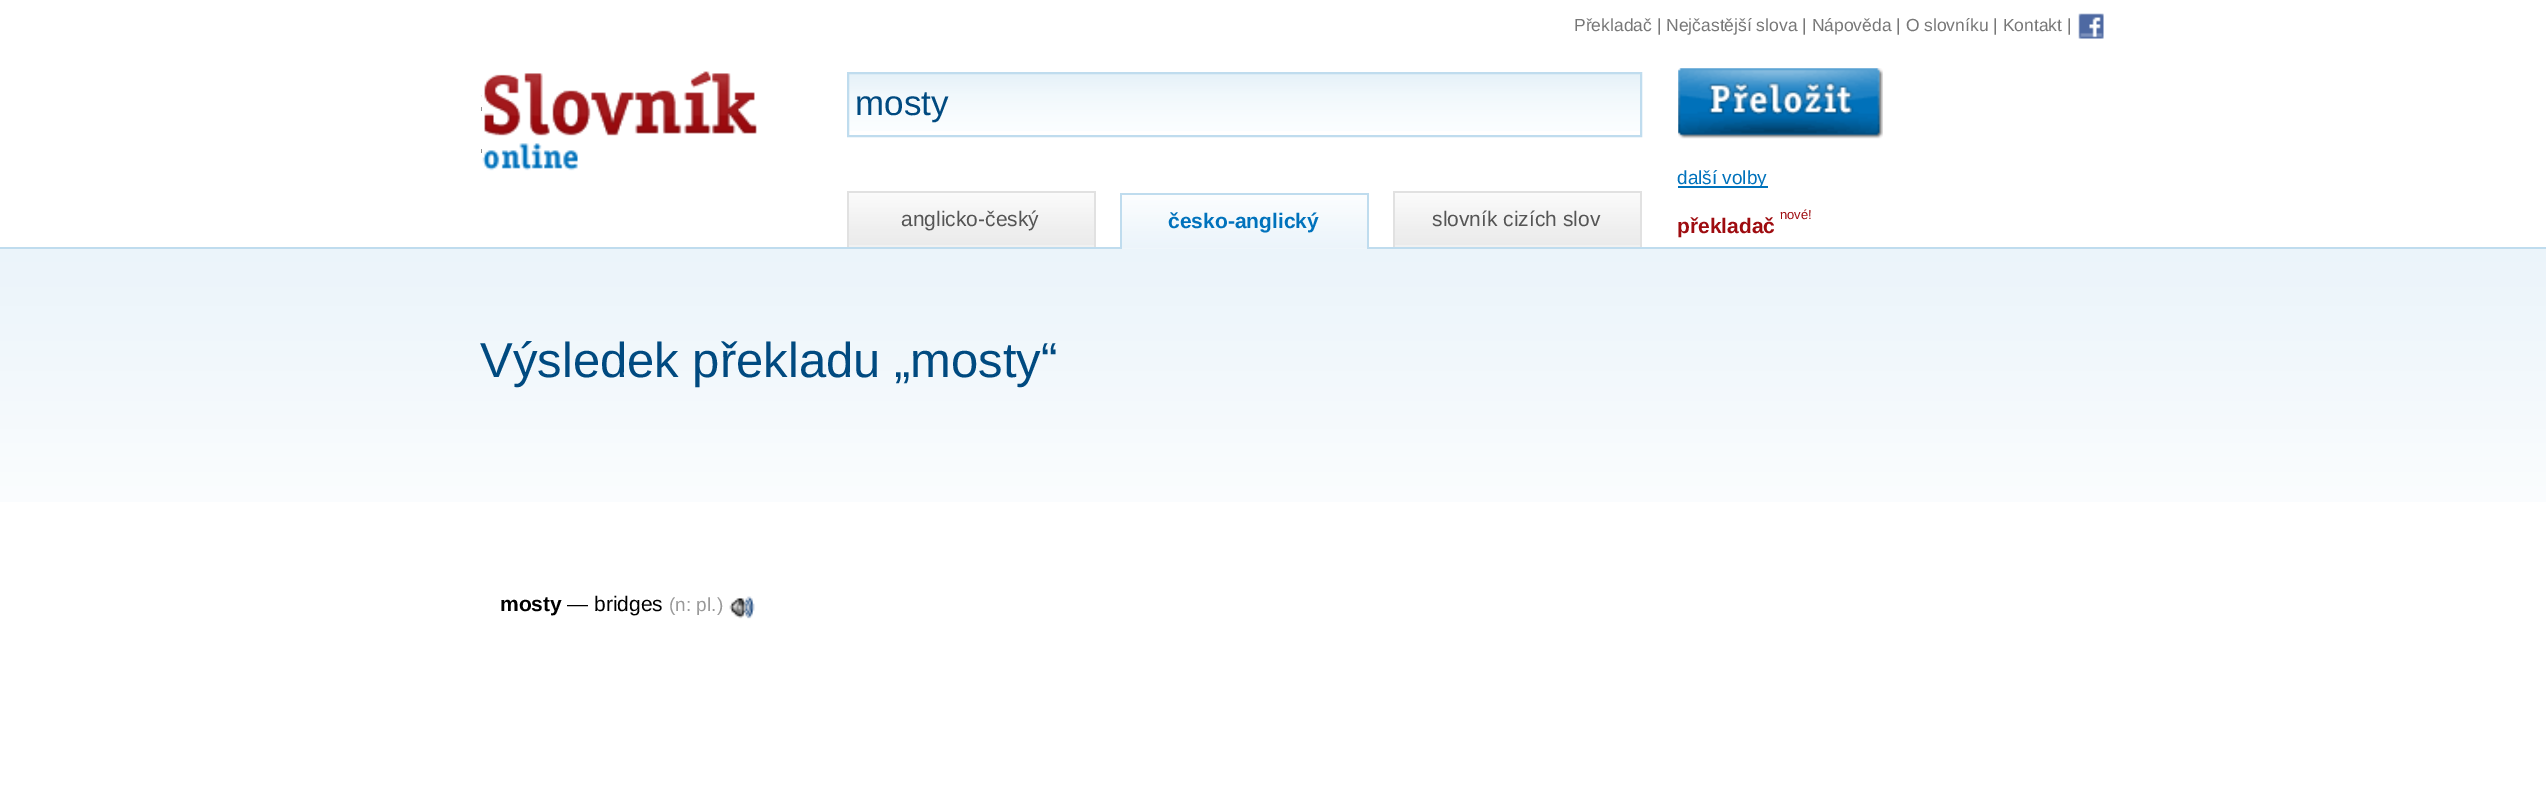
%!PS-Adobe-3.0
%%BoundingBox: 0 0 2546 791
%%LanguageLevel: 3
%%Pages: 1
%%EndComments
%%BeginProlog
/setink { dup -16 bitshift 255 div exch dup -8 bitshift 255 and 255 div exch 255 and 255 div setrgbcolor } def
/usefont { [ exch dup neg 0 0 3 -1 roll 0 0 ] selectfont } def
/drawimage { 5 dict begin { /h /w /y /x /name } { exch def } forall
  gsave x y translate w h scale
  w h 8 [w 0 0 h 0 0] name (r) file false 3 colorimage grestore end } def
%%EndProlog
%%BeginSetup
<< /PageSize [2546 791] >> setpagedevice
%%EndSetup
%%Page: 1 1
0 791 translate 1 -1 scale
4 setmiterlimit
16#FFFFFF setink
0 0 2546 791 rectfill
/LiberationSans-Regular 17.5 usefont
16#777777 setink
1574 31 moveto (Překladač | Nejčastější slova | Nápověda | O slovníku | Kontakt |) show
(img1.raw) 2078 13 26 26 drawimage
16#000000 setink
481 107 1 4 rectfill
481 149 1 4 rectfill
(img2.raw) 481 71 276 100 drawimage
(img3.raw) 849 74 791 57 drawimage
16#BFDCEE setink
2 setlinewidth
848 73 793 63 rectstroke
/LiberationSans-Regular 35 usefont
16#004A80 setink
855 115 moveto (mosty) show
(img4.raw) 1678 68 205 71 drawimage
16#0072BC setink
1678 186 90 2 rectfill
/LiberationSans-Regular 19 usefont
1677 184 moveto (další volby) show
16#F1F1F1 setink
849 245 245 2 rectfill
(img5.raw) 849 193 245 52 drawimage
[
    [847 191 249 2 16#E1E1E1]
    [1094 191 2 56 16#E1E1E1]
    [847 191 2 56 16#E1E1E1]
] { aload pop setink rectfill } forall
/LiberationSans-Regular 21 usefont
16#555555 setink
901 226 moveto (anglicko-český) show
16#BFDCEE setink
0 247 2546 2 rectfill
16#F3F9FC setink
1122 248 245 1 rectfill
(img6.raw) 1122 195 245 54 drawimage
[
    [1120 193 249 2 16#BFDCEE]
    [1367 193 2 56 16#BFDCEE]
    [1120 193 2 56 16#BFDCEE]
] { aload pop setink rectfill } forall
/LiberationSans-Bold 21 usefont
16#0072BC setink
1168 228 moveto (česko-anglický) show
16#F1F1F1 setink
1395 245 245 2 rectfill
(img5.raw) 1395 193 245 52 drawimage
[
    [1393 191 249 2 16#E1E1E1]
    [1640 191 2 56 16#E1E1E1]
    [1393 191 2 56 16#E1E1E1]
] { aload pop setink rectfill } forall
/LiberationSans-Regular 21 usefont
16#555555 setink
1432 226 moveto (slovník cizích slov) show
/LiberationSans-Bold 21 usefont
16#9E0B0F setink
1677 233 moveto (překladač) show
/LiberationSans-Regular 13 usefont
1780 219 moveto (nové!) show
(img7.raw) 0 249 2546 253 drawimage
/LiberationSans-Regular 49 usefont
16#004A80 setink
480 377 moveto (Výsledek překladu „mosty“) show
/LiberationSans-Bold 21 usefont
16#000000 setink
500 611 moveto (mosty) show
/LiberationSans-Regular 21 usefont
567 611 moveto (— bridges) show
/LiberationSans-Regular 19 usefont
16#999999 setink
669 611 moveto (\(n: pl.\)) show
(img8.raw) 729 596 26 23 drawimage
showpage
%%EOF
